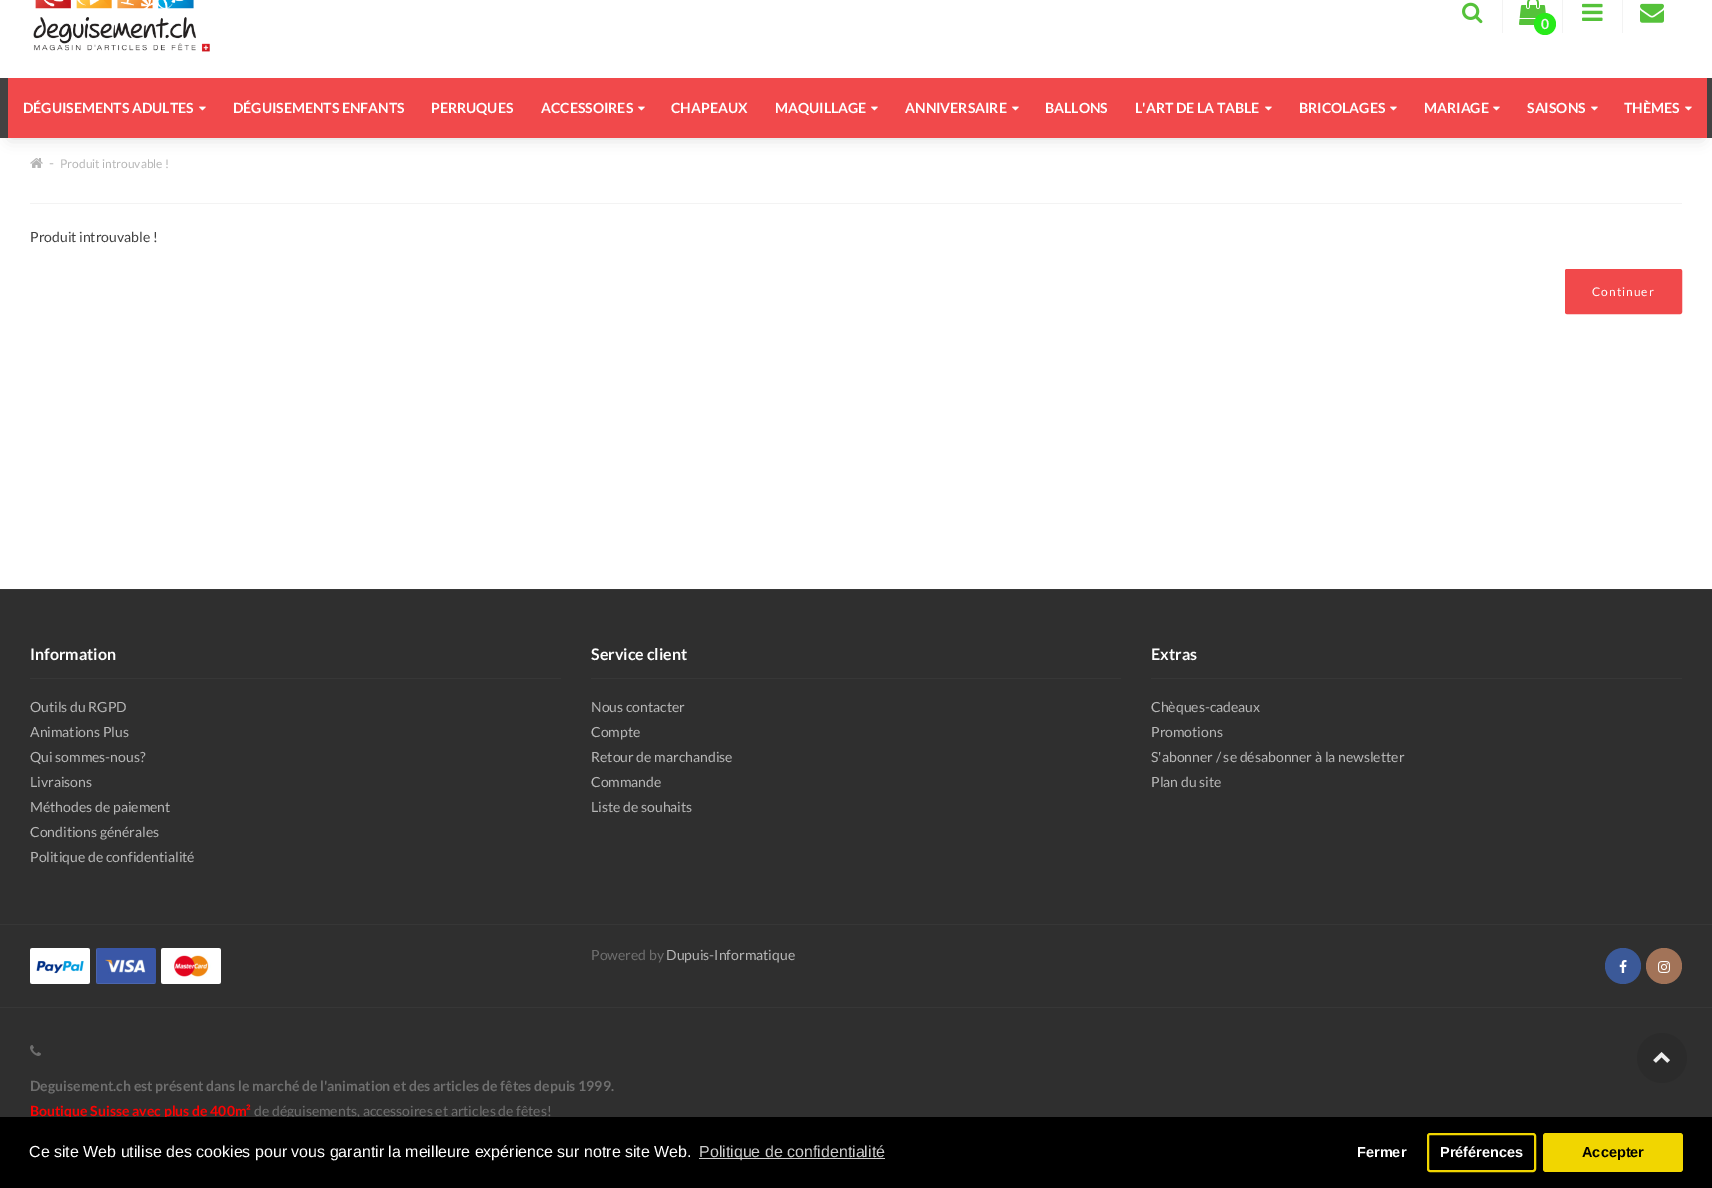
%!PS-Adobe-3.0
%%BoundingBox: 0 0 1712 1188
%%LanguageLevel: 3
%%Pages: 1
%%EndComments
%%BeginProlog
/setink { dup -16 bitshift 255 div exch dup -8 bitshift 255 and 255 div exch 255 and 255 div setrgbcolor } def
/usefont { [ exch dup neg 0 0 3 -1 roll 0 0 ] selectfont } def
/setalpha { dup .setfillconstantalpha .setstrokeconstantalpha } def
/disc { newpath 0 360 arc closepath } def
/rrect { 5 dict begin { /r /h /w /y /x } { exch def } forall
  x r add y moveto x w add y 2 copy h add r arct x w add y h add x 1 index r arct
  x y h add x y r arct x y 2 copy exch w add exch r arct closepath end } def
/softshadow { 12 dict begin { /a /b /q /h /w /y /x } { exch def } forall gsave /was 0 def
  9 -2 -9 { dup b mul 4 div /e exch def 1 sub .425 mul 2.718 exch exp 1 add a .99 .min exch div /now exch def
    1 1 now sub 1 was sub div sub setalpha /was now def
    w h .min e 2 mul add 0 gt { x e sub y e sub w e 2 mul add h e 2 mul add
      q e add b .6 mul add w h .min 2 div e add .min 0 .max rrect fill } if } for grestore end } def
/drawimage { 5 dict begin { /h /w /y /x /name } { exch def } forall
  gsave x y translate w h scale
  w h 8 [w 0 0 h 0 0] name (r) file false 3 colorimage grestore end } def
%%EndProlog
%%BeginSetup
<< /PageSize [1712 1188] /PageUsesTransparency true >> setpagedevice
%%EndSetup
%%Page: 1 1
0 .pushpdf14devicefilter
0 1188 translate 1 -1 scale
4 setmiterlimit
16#FFFFFF setink
0 0 1712 1188 rectfill
(img1.raw) 33 0 177 52 drawimage
(img2.raw) 1462 2 21 22 drawimage
16#F3F3F3 setink
1502 0 1 33 rectfill
(img3.raw) 1519 0 27 25 drawimage
16#28EA1A setink
1545 24 11 disc fill
/Lato-Bold 14 usefont
16#F3F3F3 setink
1541 29 moveto (0) show
1562 0 1 33 rectfill
(img4.raw) 1582 3 21 18 drawimage
1622 0 1 33 rectfill
(img5.raw) 1640 3 24 20 drawimage
16#000000 setink
10 98 1692 40 0 7.5 0.15 softshadow
16#424242 setink
0 78 1712 60 rectfill
16#F1494B setink
8 78 1699 60 rectfill
16#FFFFFF setink
23 113 moveto (DÉGUISEMENTS ADULTES) show
(img6.raw) 199 106 7 5 drawimage
[
    [(DÉGUISEMENTS ENFANTS) 233 113]
    [(PERRUQUES) 431 113]
    [(ACCESSOIRES) 541 113]
] { aload pop moveto show } forall
(img6.raw) 638 106 7 5 drawimage
671 113 moveto (CHAPEAUX) show
775 113 moveto (MAQUILLAGE) show
(img6.raw) 871 106 7 5 drawimage
905 113 moveto (ANNIVERSAIRE) show
(img6.raw) 1012 106 7 5 drawimage
1045 113 moveto (BALLONS) show
1135 113 moveto (L'ART DE LA TABLE) show
(img6.raw) 1265 106 7 5 drawimage
1299 113 moveto (BRICOLAGES) show
(img6.raw) 1390 106 7 5 drawimage
1424 113 moveto (MARIAGE) show
(img6.raw) 1493 106 7 5 drawimage
1527 113 moveto (SAISONS) show
(img6.raw) 1591 106 7 5 drawimage
1624 113 moveto (THÈMES) show
(img6.raw) 1685 106 7 5 drawimage
(img7.raw) 30 158 13 10 drawimage
/Lato-Regular 14 usefont
16#B6B6B6 setink
49 168 moveto (-) show
/Lato-Regular 12 usefont
60 168 moveto (Produit introuvable !) show
16#F3F3F3 setink
30 203 1652 1 rectfill
/Lato-Regular 14 usefont
16#424242 setink
30 242 moveto (Produit introuvable !) show
16#F1494B setink
1566 270 115 43 1 rrect gsave fill grestore
2 setlinewidth
stroke
/Lato-Regular 12 usefont
16#FFFFFF setink
1592 296 moveto 1 0 (Continuer) ashow
[
    [0 590 1712 334 16#2F2F2F]
    [0 589 1712 1 16#373737]
    [30 678 531 1 16#373737]
] { aload pop setink rectfill } forall
/Lato-Bold 16 usefont
16#FFFFFF setink
30 660 moveto (Information) show
/Lato-Regular 14 usefont
16#B6B6B6 setink
[
    [(Outils du RGPD) 30 712]
    [(Animations Plus) 30 737]
    [(Qui sommes-nous?) 30 762]
    [(Livraisons) 30 787]
    [(Méthodes de paiement) 30 812]
    [(Conditions générales) 30 837]
    [(Politique de confidentialité) 30 862]
] { aload pop moveto show } forall
16#373737 setink
591 678 530 1 rectfill
/Lato-Bold 16 usefont
16#FFFFFF setink
591 660 moveto (Service client) show
/Lato-Regular 14 usefont
16#B6B6B6 setink
[
    [(Nous contacter) 591 712]
    [(Compte) 591 737]
    [(Retour de marchandise) 591 762]
    [(Commande) 591 787]
    [(Liste de souhaits) 591 812]
] { aload pop moveto show } forall
16#373737 setink
1151 678 531 1 rectfill
/Lato-Bold 16 usefont
16#FFFFFF setink
1151 660 moveto (Extras) show
/Lato-Regular 14 usefont
16#B6B6B6 setink
[
    [(Chèques-cadeaux) 1151 712]
    [(Promotions) 1151 737]
    [(S'abonner / se désabonner à la newsletter) 1151 762]
    [(Plan du site) 1151 787]
] { aload pop moveto show } forall
16#2F2F2F setink
0 925 1712 82 rectfill
16#373737 setink
0 924 1712 1 rectfill
(img8.raw) 30 948 60 36 drawimage
(img9.raw) 96 948 60 36 drawimage
(img10.raw) 161 948 60 36 drawimage
16#6E6E6E setink
591 960 moveto (Powered by) show
16#B6B6B6 setink
666 960 moveto (Dupuis-Informatique) show
16#3B5998 setink
1623 966 18 disc fill
(img11.raw) 1619 960 8 13 drawimage
16#A27358 setink
1664 966 18 disc fill
(img12.raw) 1658 961 12 12 drawimage
16#2F2F2F setink
0 1008 1712 109 rectfill
16#373737 setink
0 1007 1712 1 rectfill
(img13.raw) 30 1045 11 11 drawimage
/Lato-Bold 14 usefont
16#6E6E6E setink
30 1091 moveto (Deguisement.ch est présent dans le marché de l'animation et des articles de fêtes depuis 1999.) show
16#FF0000 setink
30 1116 moveto (Boutique Suisse avec plus de 400m²) show
/Lato-Regular 14 usefont
16#6E6E6E setink
254 1116 moveto (de déguisements, accessoires et articles de fêtes!) show
16#2B2B2B setink
1662 1058 25 disc fill
(img14.raw) 1653 1052 17 11 drawimage
16#000000 setink
0 1117 1712 71 rectfill
/LiberationSans-Regular 16 usefont
16#FFFFFF setink
29 1157 moveto (Ce site Web utilise des cookies pour vous garantir la meilleure expérience sur notre site Web.) show
16#CCCCCC setink
699 1158 186 1 rectfill
699 1157 moveto (Politique de confidentialité) show
/LiberationSans-Bold 14.5 usefont
16#FFFFFF setink
1357 1157 moveto (Fermer) show
16#F1D600 setink
1428 1134 107 37 2 rrect stroke
16#FFFFFF setink
1440 1157 moveto (Préférences) show
16#F1D600 setink
1543 1133 140 39 3 rrect fill
16#000000 setink
1582 1157 moveto (Accepter) show
.poppdf14devicefilter showpage
%%EOF
